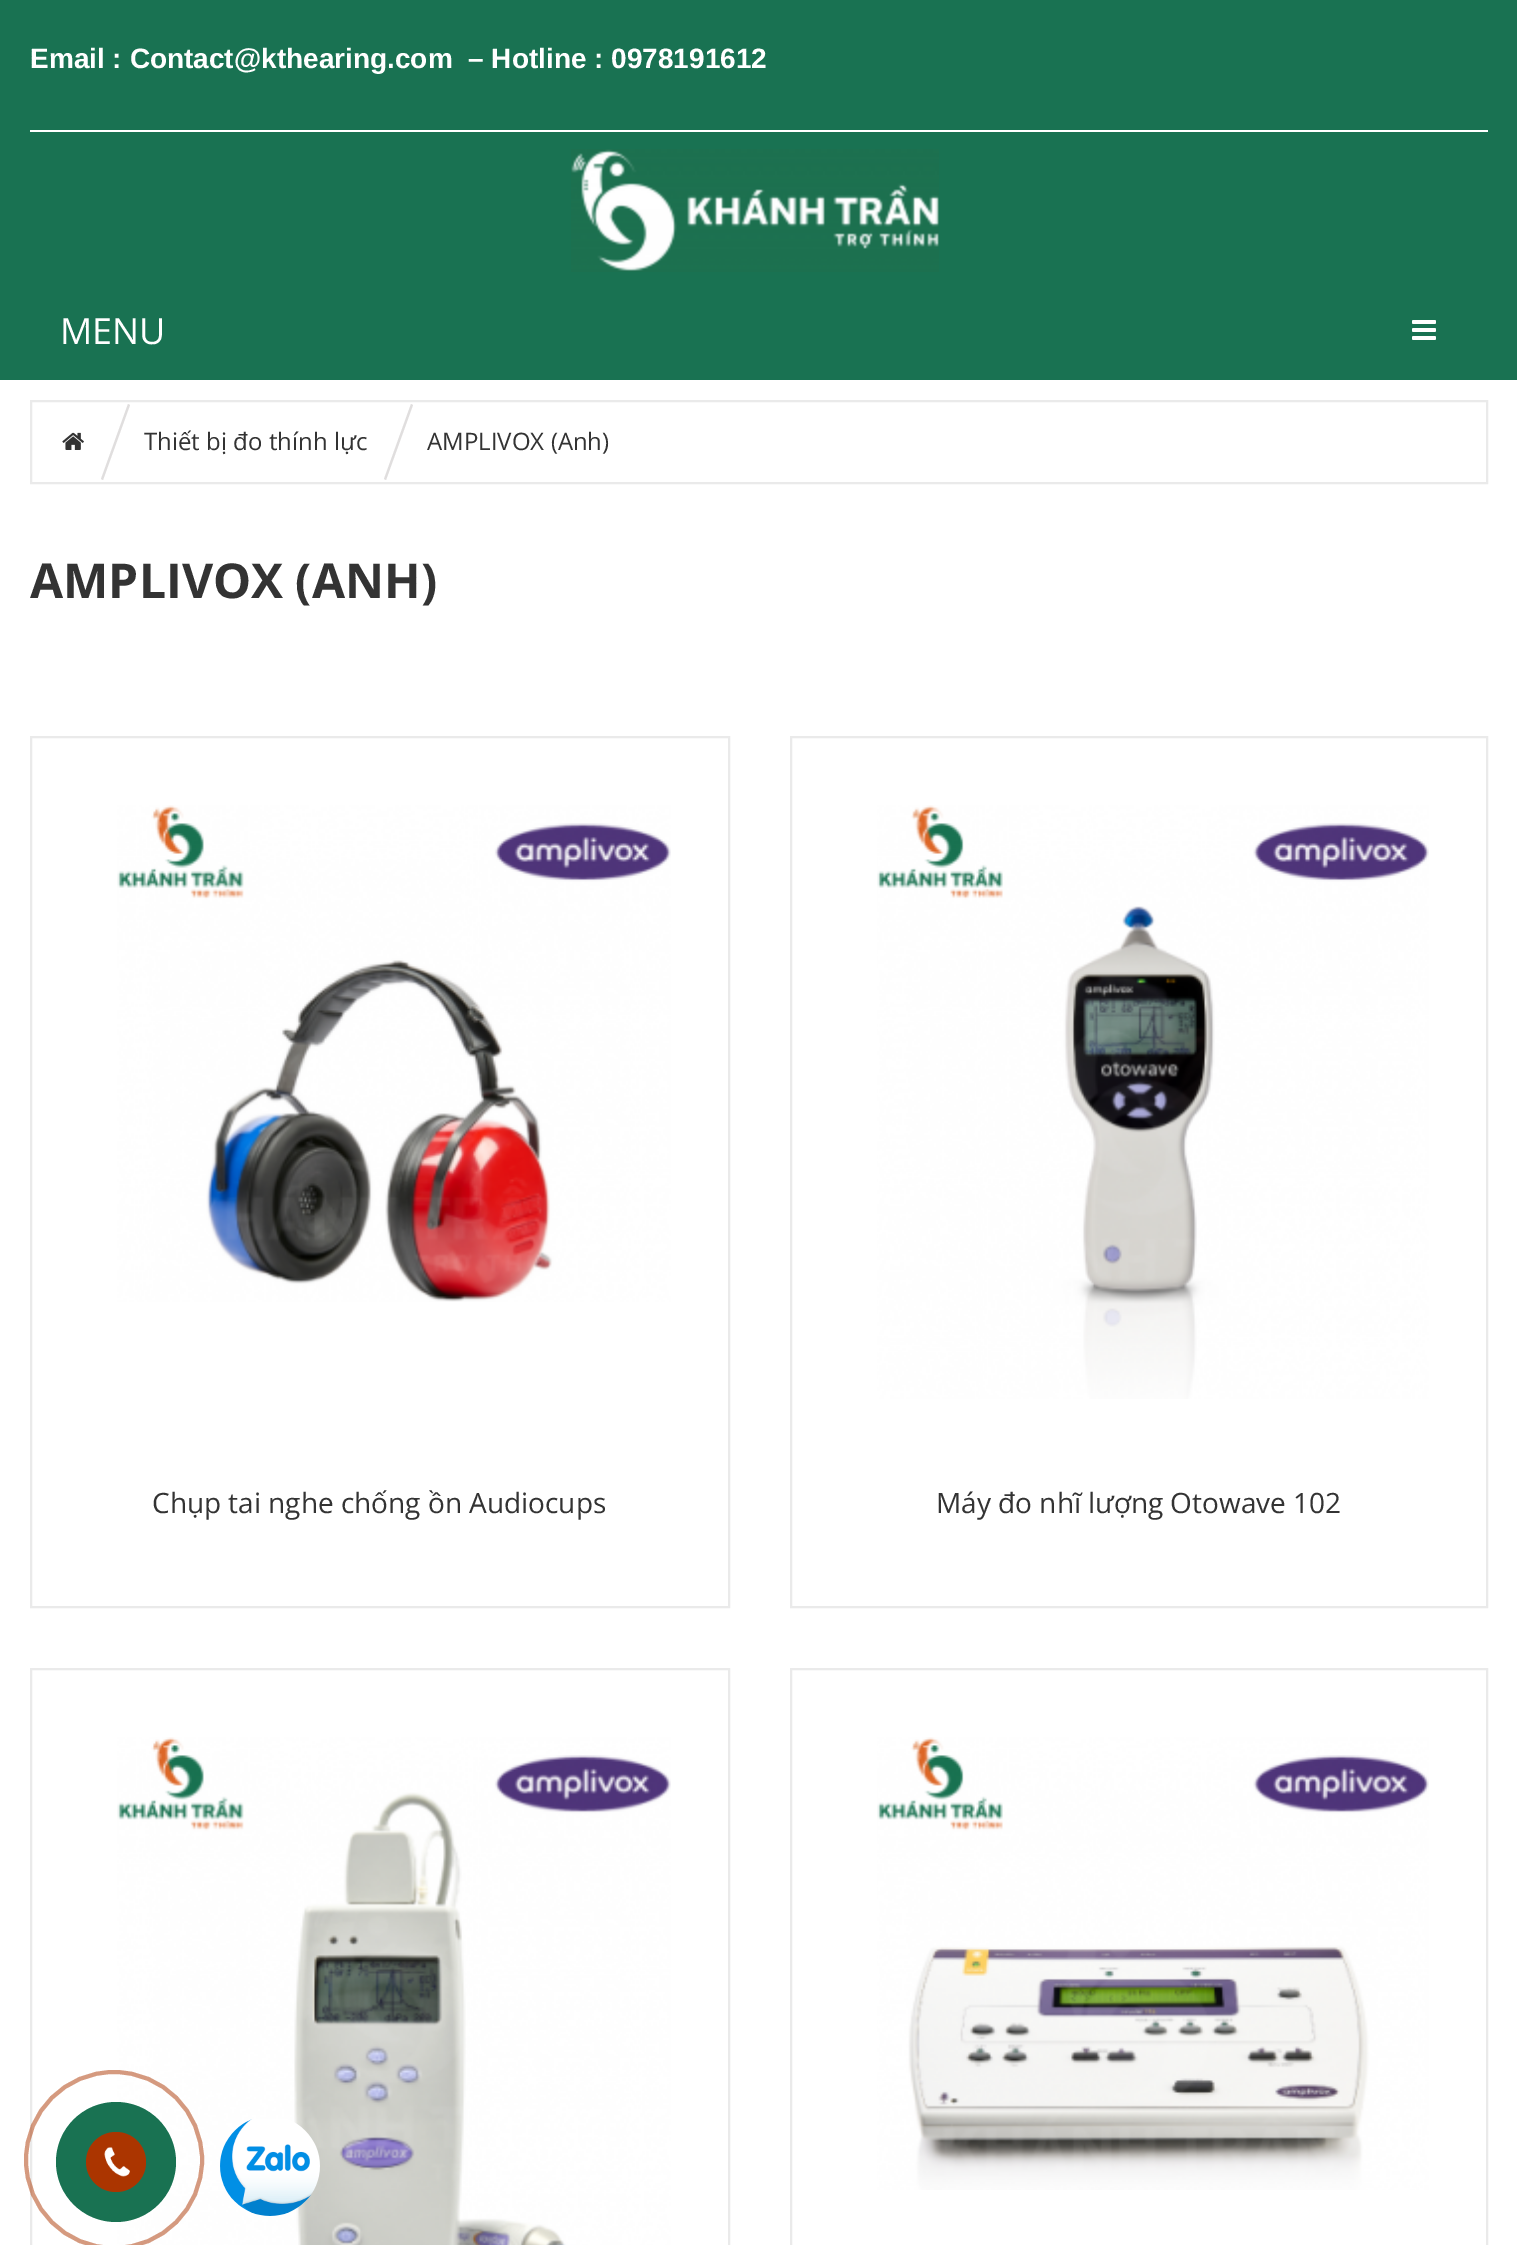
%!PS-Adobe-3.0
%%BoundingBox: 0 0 1517 2245
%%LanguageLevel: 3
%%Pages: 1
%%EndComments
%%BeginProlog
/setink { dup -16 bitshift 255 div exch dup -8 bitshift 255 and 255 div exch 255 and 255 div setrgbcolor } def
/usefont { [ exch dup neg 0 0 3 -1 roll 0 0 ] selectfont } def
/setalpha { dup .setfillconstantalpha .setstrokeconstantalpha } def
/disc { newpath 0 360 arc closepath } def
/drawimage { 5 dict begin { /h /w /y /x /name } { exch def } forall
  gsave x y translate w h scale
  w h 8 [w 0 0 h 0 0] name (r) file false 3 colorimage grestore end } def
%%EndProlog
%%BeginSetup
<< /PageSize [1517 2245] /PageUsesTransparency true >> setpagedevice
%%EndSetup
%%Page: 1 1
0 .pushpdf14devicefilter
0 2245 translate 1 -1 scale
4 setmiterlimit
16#FFFFFF setink
0 0 1517 2245 rectfill
16#197252 setink
0 0 1517 380 rectfill
/LiberationSans-Bold 28 usefont
16#FFFFFF setink
30 68 moveto (Email : Contact@kthearing.com  – Hotline : 0978191612) show
30 130 1458 2 rectfill
(img1.raw) 571 149 368 123 drawimage
/OpenSans-Regular 36 usefont
60 344 moveto (MENU) show
(img2.raw) 1412 320 24 20 drawimage
16#EAEAEA setink
2 setlinewidth
31 401 1456 82 rectstroke
(img3.raw) 62 432 22 18 drawimage
16#E0DEDE setink
128 404 moveto 130 405 lineto 103 480 lineto 101 479 lineto closepath fill
/OpenSans-Regular 24 usefont
16#333333 setink
144 450 moveto (Thiết bị đo thính lực) show
16#E0DEDE setink
411 404 moveto 413 405 lineto 386 480 lineto 384 479 lineto closepath fill
16#333333 setink
427 450 moveto (AMPLIVOX \(Anh\)) show
/OpenSans-Bold 48 usefont
30 598 moveto (AMPLIVOX \(ANH\)) show
16#EAEAEA setink
31 737 698 870 rectstroke
(img4.raw) 117 805 554 497 drawimage
/OpenSans-Regular 28 usefont
16#333333 setink
152 1513 moveto (Chụp tai nghe chống ồn Audiocups) show
16#EAEAEA setink
791 737 696 870 rectstroke
(img5.raw) 877 805 552 594 drawimage
16#333333 setink
936 1513 moveto (Máy đo nhĩ lượng Otowave 102) show
16#EAEAEA setink
31 1669 698 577 rectstroke
(img6.raw) 117 1737 554 508 drawimage
791 1669 696 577 rectstroke
(img7.raw) 877 1737 552 453 drawimage
0.5 setalpha
16#AB3500 setink
4 setlinewidth
114 2160 88 disc stroke
1 setalpha
16#197252 setink
116 2162 60 disc fill
16#AB3500 setink
116 2162 30 disc fill
(img8.raw) 104 2147 26 30 drawimage
(img9.raw) 220 2119 100 97 drawimage
.poppdf14devicefilter showpage
%%EOF
